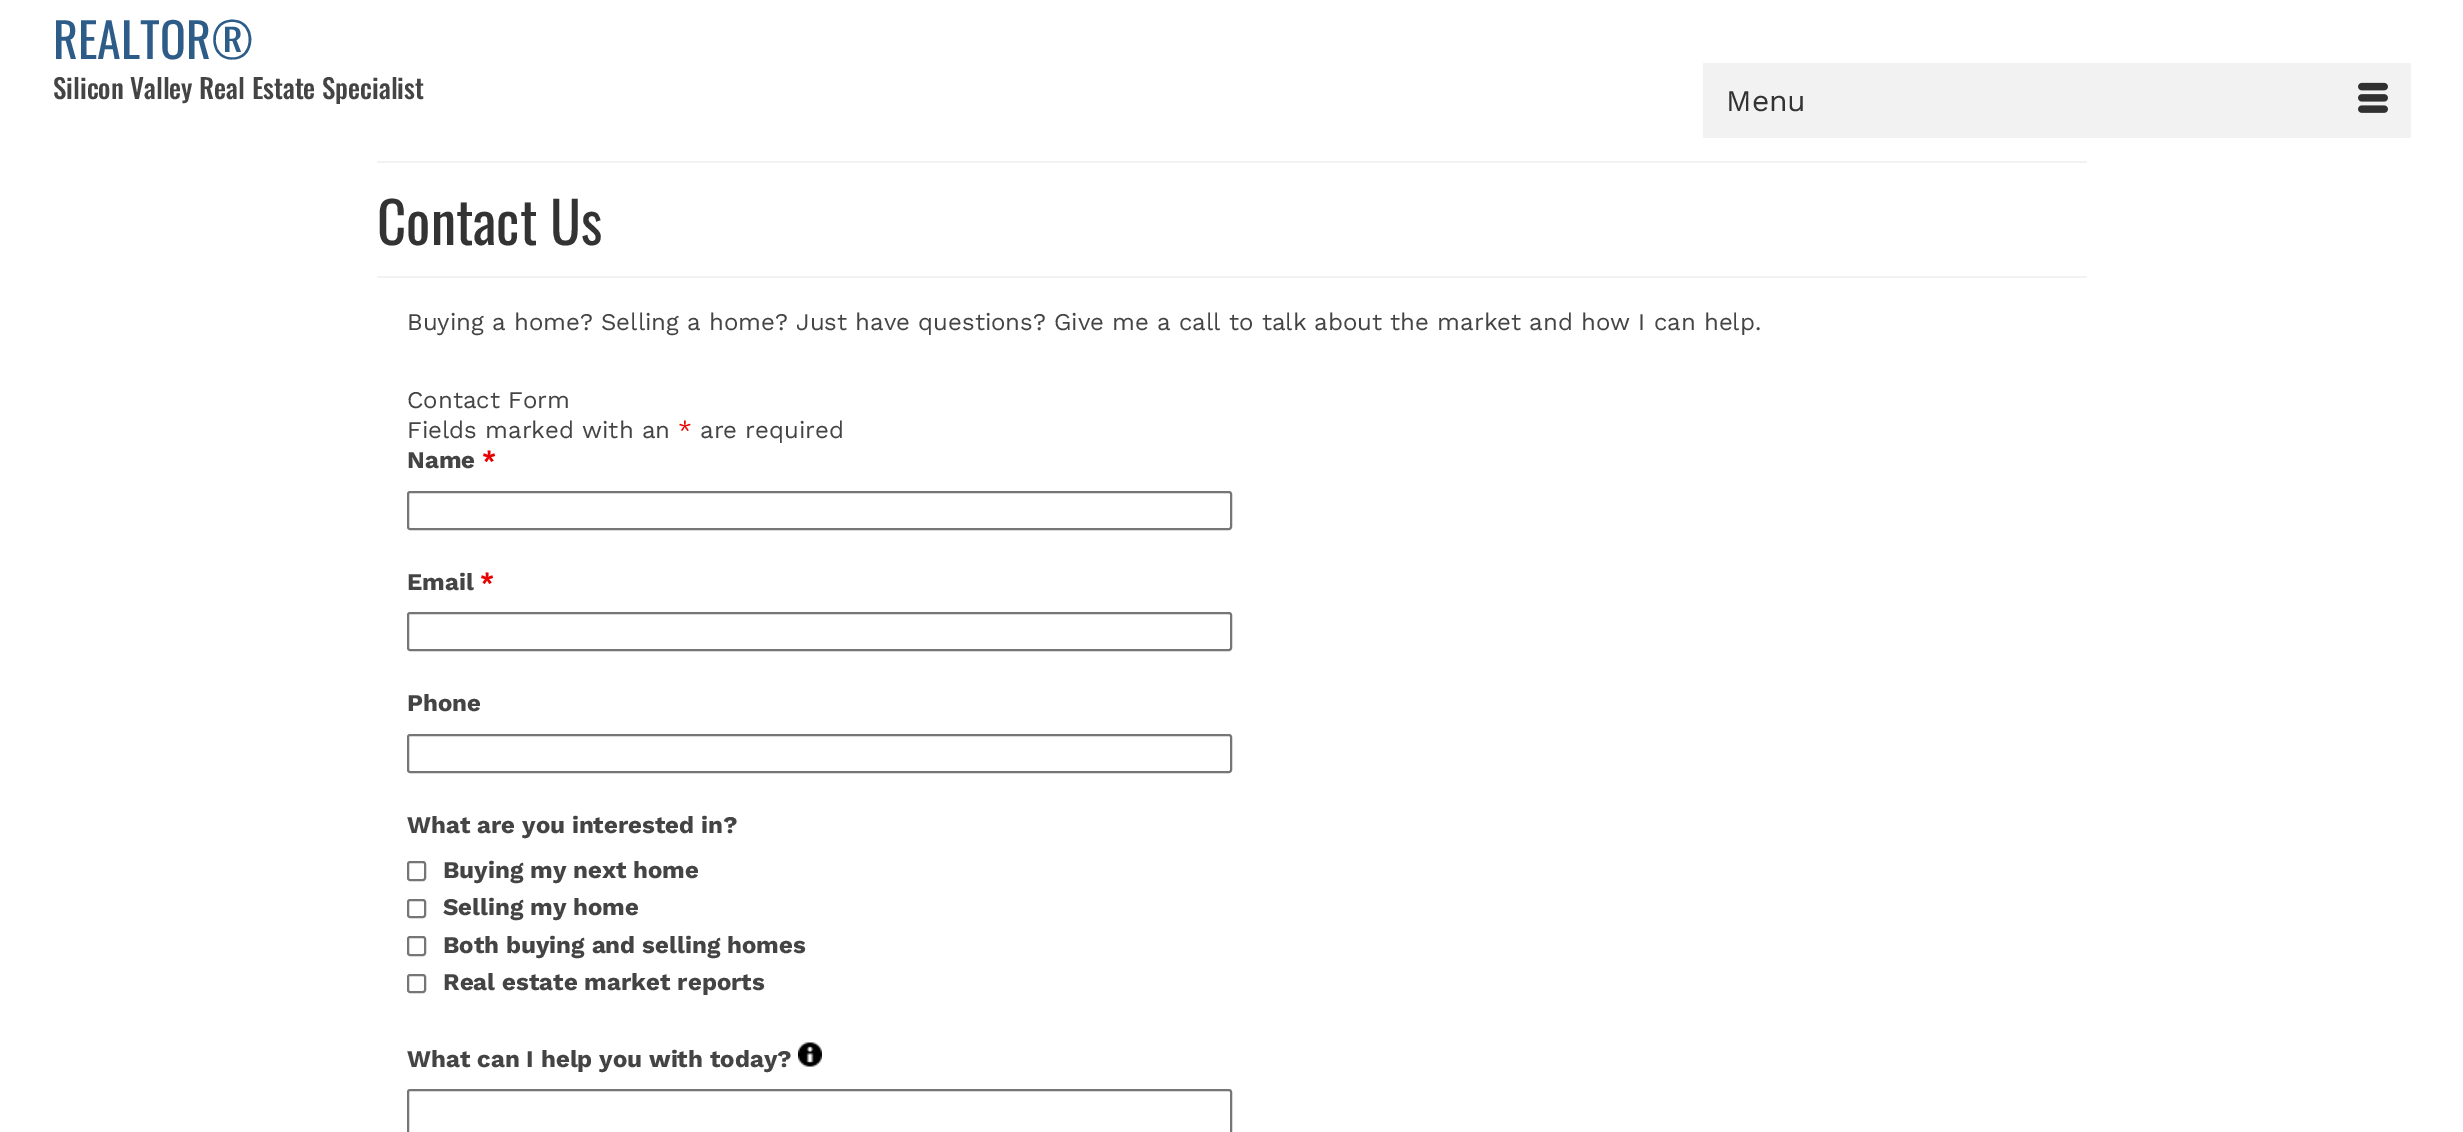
%!PS-Adobe-3.0
%%BoundingBox: 0 0 2463 1132
%%LanguageLevel: 3
%%Pages: 1
%%EndComments
%%BeginProlog
/setink { dup -16 bitshift 255 div exch dup -8 bitshift 255 and 255 div exch 255 and 255 div setrgbcolor } def
/usefont { [ exch dup neg 0 0 3 -1 roll 0 0 ] selectfont } def
/rrect { 5 dict begin { /r /h /w /y /x } { exch def } forall
  x r add y moveto x w add y 2 copy h add r arct x w add y h add x 1 index r arct
  x y h add x y r arct x y 2 copy exch w add exch r arct closepath end } def
/drawimage { 5 dict begin { /h /w /y /x /name } { exch def } forall
  gsave x y translate w h scale
  w h 8 [w 0 0 h 0 0] name (r) file false 3 colorimage grestore end } def
%%EndProlog
%%BeginSetup
<< /PageSize [2463 1132] >> setpagedevice
%%EndSetup
%%Page: 1 1
0 1132 translate 1 -1 scale
4 setmiterlimit
16#FFFFFF setink
0 0 2463 1132 rectfill
/Oswald-Regular 48 usefont
16#2D5C88 setink
53 59 moveto (REALTOR®) show
/Oswald-Medium 27 usefont
16#444444 setink
53 99 moveto (Silicon Valley Real Estate Specialist) show
16#F2F2F2 setink
1703 63 708 75 rectfill
/WorkSans-Regular 30 usefont
16#333333 setink
1726 111 moveto (Menu) show
(img1.raw) 2358 82 30 31 drawimage
16#F2F2F2 setink
377 161 1710 2 rectfill
377 276 1710 2 rectfill
/Oswald-Regular 57 usefont
16#333333 setink
377 245 moveto (Contact Us) show
/WorkSans-Regular 24 usefont
16#444444 setink
[
    [(Buying a home? Selling a home? Just have questions? Give me a call to talk about the market and how I can help.) 407 330]
    [(Contact Form) 407 408]
    [(Fields marked with an) 407 438]
] { aload pop moveto show } forall
16#E80000 setink
678 438 moveto (*) show
16#444444 setink
700 438 moveto (are required) show
/WorkSans-Bold 24 usefont
407 468 moveto (Name) show
16#E80000 setink
482 468 moveto (*) show
16#767676 setink
2 setlinewidth
408 492 823 37 2 rrect stroke
16#444444 setink
407 590 moveto (Email) show
16#E80000 setink
480 590 moveto (*) show
16#767676 setink
408 613 823 37 2 rrect stroke
16#444444 setink
407 711 moveto (Phone) show
16#767676 setink
408 735 823 37 2 rrect stroke
16#444444 setink
407 833 moveto (What are you interested in?) show
16#767676 setink
408 862 17 18 2 rrect stroke
16#444444 setink
443 878 moveto (Buying my next home) show
16#767676 setink
408 900 17 17 2 rrect stroke
16#444444 setink
443 915 moveto (Selling my home) show
16#767676 setink
408 937 17 18 2 rrect stroke
16#444444 setink
443 953 moveto (Both buying and selling homes) show
16#767676 setink
408 975 17 17 2 rrect stroke
16#444444 setink
443 990 moveto (Real estate market reports) show
407 1067 moveto (What can I help you with today?) show
(img2.raw) 798 1042 24 25 drawimage
16#767676 setink
408 1090 823 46 2 rrect stroke
showpage
%%EOF
